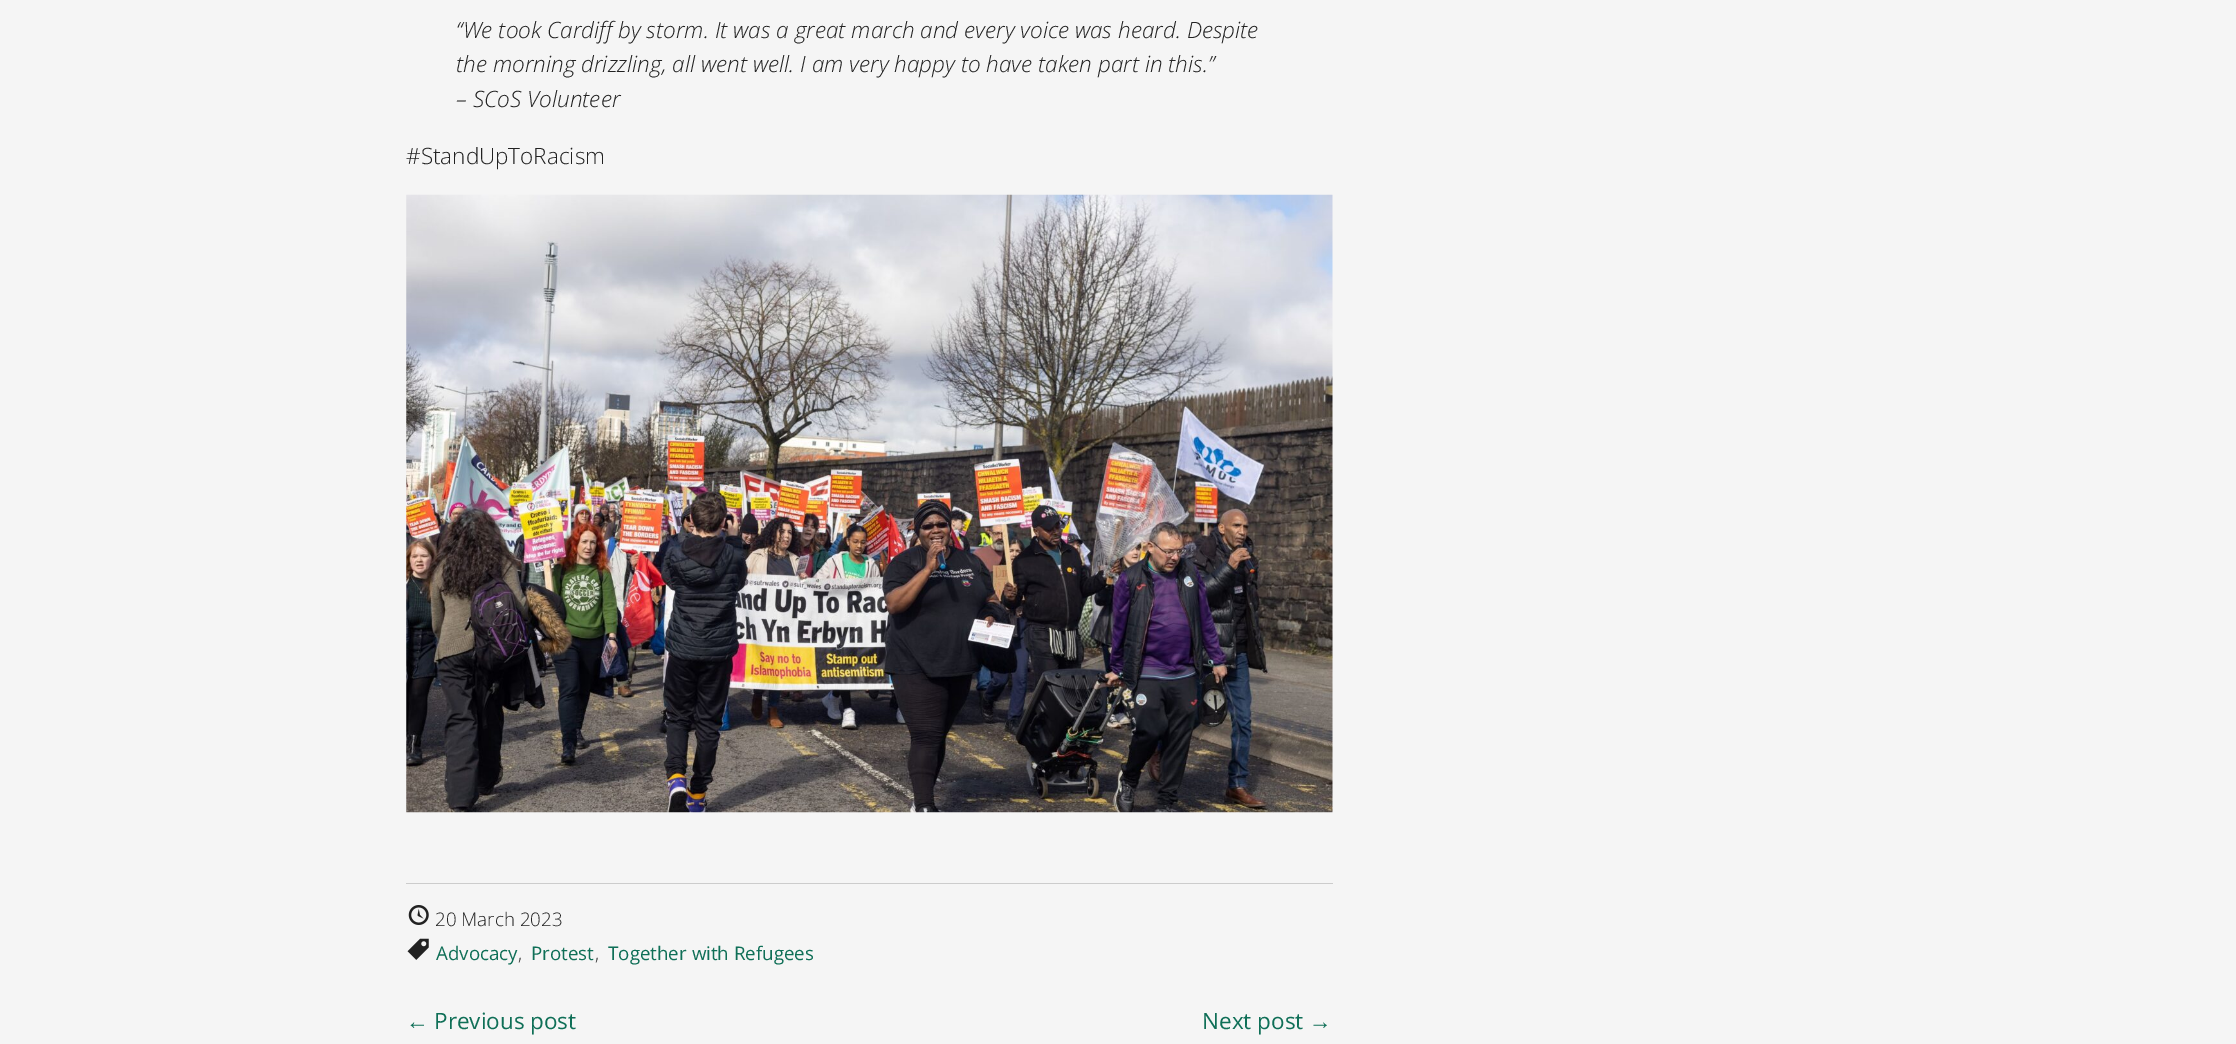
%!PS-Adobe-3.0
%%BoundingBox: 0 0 2236 1044
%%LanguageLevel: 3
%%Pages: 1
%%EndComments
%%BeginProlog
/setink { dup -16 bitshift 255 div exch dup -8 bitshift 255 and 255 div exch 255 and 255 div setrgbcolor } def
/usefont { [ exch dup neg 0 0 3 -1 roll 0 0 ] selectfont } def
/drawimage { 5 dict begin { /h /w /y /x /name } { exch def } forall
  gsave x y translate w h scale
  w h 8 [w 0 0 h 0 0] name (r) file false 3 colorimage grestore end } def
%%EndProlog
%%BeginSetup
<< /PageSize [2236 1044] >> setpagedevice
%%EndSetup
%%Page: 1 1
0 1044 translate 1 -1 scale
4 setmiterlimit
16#F5F5F5 setink
0 0 2236 1044 rectfill
/OpenSans-LightItalic 22.5 usefont
16#222222 setink
[
    [(“We took Cardiff by storm. It was a great march and every voice was heard. Despite) 456 38]
    [(the morning drizzling, all went well. I am very happy to have taken part in this.”) 456 72]
    [(– SCoS Volunteer) 456 107]
] { aload pop moveto show } forall
/OpenSans-Light 22.5 usefont
406 164 moveto (#StandUpToRacism) show
(img1.raw) 406 194 927 619 drawimage
16#CCCCCC setink
406 883 927 1 rectfill
(img2.raw) 408 905 21 20 drawimage
/OpenSans-Light 18.75 usefont
16#222222 setink
435 926 moveto (20 March 2023) show
(img3.raw) 407 938 22 22 drawimage
/OpenSans-Regular 18.75 usefont
16#0F6F57 setink
436 960 moveto (Advocacy) show
/OpenSans-Light 18.75 usefont
16#222222 setink
518 960 moveto (,) show
/OpenSans-Regular 18.75 usefont
16#0F6F57 setink
531 960 moveto (Protest) show
/OpenSans-Light 18.75 usefont
16#222222 setink
595 960 moveto (,) show
/OpenSans-Regular 18.75 usefont
16#0F6F57 setink
608 960 moveto (Together with Refugees) show
/LiberationSans-Regular 22.5 usefont
406 1029 moveto (←) show
/OpenSans-Regular 22.5 usefont
434 1029 moveto (Previous post) show
1202 1029 moveto (Next post) show
/LiberationSans-Regular 22.5 usefont
1309 1029 moveto (→) show
showpage
%%EOF
